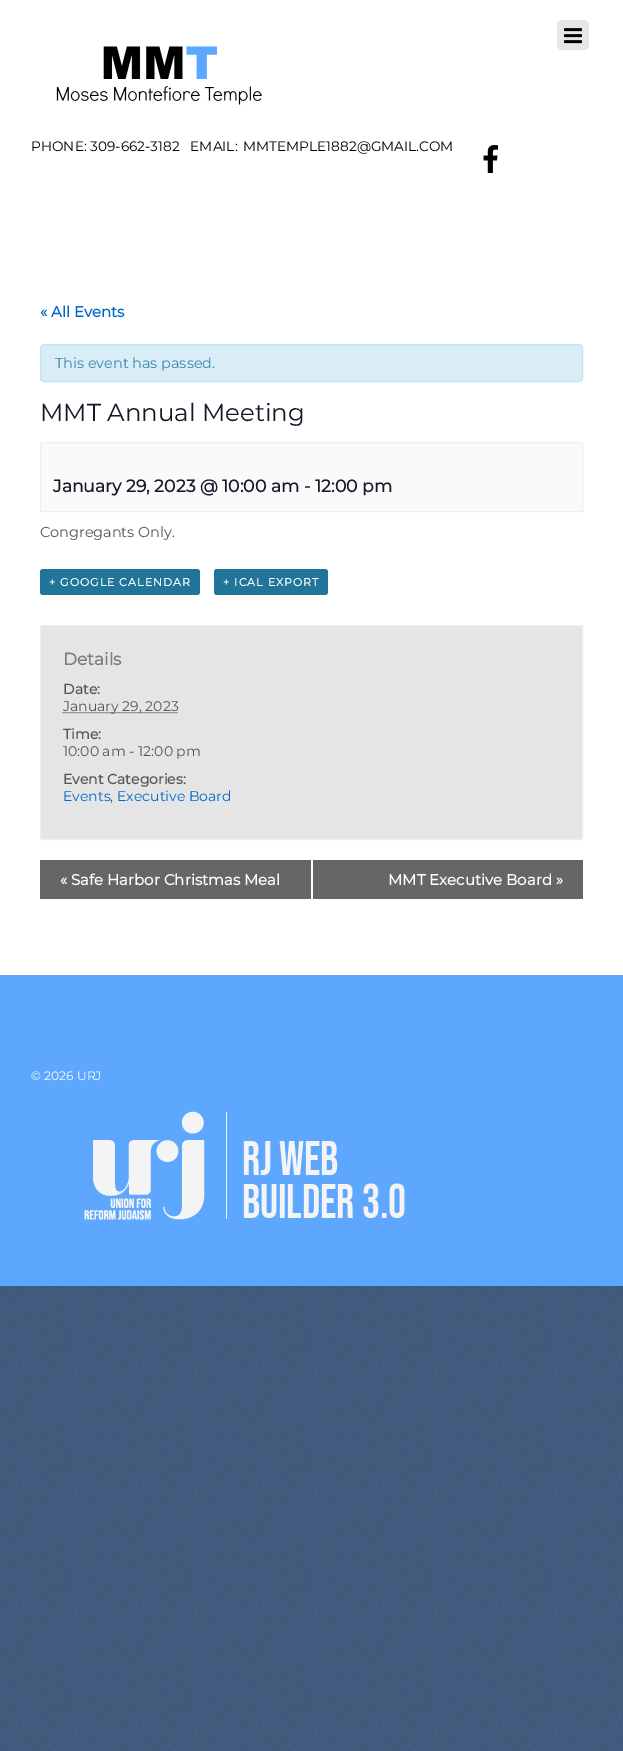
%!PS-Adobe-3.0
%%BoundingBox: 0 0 623 1751
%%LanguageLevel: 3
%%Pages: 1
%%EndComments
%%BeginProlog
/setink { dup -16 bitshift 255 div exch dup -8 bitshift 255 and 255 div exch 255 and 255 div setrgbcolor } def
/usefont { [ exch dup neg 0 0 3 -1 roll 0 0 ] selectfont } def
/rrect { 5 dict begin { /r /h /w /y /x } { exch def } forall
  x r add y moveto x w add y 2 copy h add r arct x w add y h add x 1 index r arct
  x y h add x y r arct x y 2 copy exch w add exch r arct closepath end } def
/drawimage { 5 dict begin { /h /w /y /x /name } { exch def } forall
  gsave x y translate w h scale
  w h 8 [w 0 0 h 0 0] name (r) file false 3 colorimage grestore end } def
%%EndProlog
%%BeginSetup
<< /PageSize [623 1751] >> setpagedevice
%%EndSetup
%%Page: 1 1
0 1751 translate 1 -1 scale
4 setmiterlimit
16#FFFFFF setink
0 0 623 1751 rectfill
(img1.raw) 0 1286 623 465 drawimage
16#E6E6E6 setink
557 20 32 30 5 rrect fill
(img2.raw) 564 28 18 16 drawimage
(img3.raw) 56 46 206 59 drawimage
/Montserrat-Thin 13.7 usefont
16#000000 setink
31 151 moveto (PHONE: 309-662-3182   EMAIL:) show
243 151 moveto (MMTEMPLE1882@GMAIL.COM) show
(img4.raw) 483 145 15 28 drawimage
/Montserrat-Bold 15 usefont
16#0069CB setink
40 317 moveto (« All Events) show
16#D9EDF7 setink
40.5 344.5 542 37 3.5 rrect gsave fill grestore
16#BCE8F1 setink
stroke
/Montserrat-Thin 14.4 usefont
16#3A87AD setink
55 368 moveto (This event has passed.) show
/Montserrat-Thin 24.5 usefont
16#141827 setink
40 421 moveto (MMT Annual Meeting) show
16#FAFAFA setink
40.5 442.5 moveto 582.5 442.5 lineto 582.5 511.5 lineto 40.5 511.5 lineto closepath gsave fill grestore
16#EEEEEE setink
stroke
/Montserrat-Bold 17.25 usefont
16#141827 setink
53 492 moveto (January 29, 2023 @ 10:00 am - 12:00 pm) show
/Montserrat-Thin 14.4 usefont
16#555555 setink
40 537 moveto (Congregants Only.) show
16#21759B setink
40 569 160 26 3 rrect fill
/Montserrat-Bold 11 usefont
16#FFFFFF setink
49 586 moveto 1 0 (+ GOOGLE CALENDAR) ashow
16#21759B setink
214 569 114 26 3 rrect fill
16#FFFFFF setink
223 586 moveto 1 0 (+ ICAL EXPORT) ashow
16#E5E5E5 setink
40.5 625.5 moveto 582.5 625.5 lineto 582.5 839.5 lineto 40.5 839.5 lineto closepath gsave fill grestore
16#EEEEEE setink
stroke
/Montserrat-Bold 17 usefont
16#7D7D7D setink
63 665 moveto (Details) show
/Montserrat-Bold 14 usefont
16#555555 setink
63 694 moveto (Date:) show
[1 1] 0 setdash
62.5 712.5 moveto 178 712.5 lineto stroke
/Montserrat-Thin 14 usefont
63 711 moveto (January 29, 2023) show
/Montserrat-Bold 14 usefont
63 739 moveto (Time:) show
/Montserrat-Thin 14 usefont
63 756 moveto (10:00 am - 12:00 pm) show
/Montserrat-Bold 14 usefont
63 784 moveto (Event Categories:) show
/Montserrat-Thin 14 usefont
16#0069CB setink
63 801 moveto (Events) show
16#555555 setink
110 801 moveto (,) show
16#0069CB setink
117 801 moveto (Executive Board) show
16#666666 setink
40 860 271 39 rectfill
/Montserrat-Bold 15 usefont
16#FFFFFF setink
60 885 moveto (« Safe Harbor Christmas Meal) show
16#666666 setink
313 860 270 39 rectfill
16#FFFFFF setink
388 885 moveto (MMT Executive Board ») show
16#5DA7FF setink
0 975 623 311 rectfill
/Montserrat-Thin 12.25 usefont
16#FFFFFF setink
31 1080 moveto (© 2026 URJ) show
(img5.raw) 84 1111 321 109 drawimage
showpage
%%EOF
